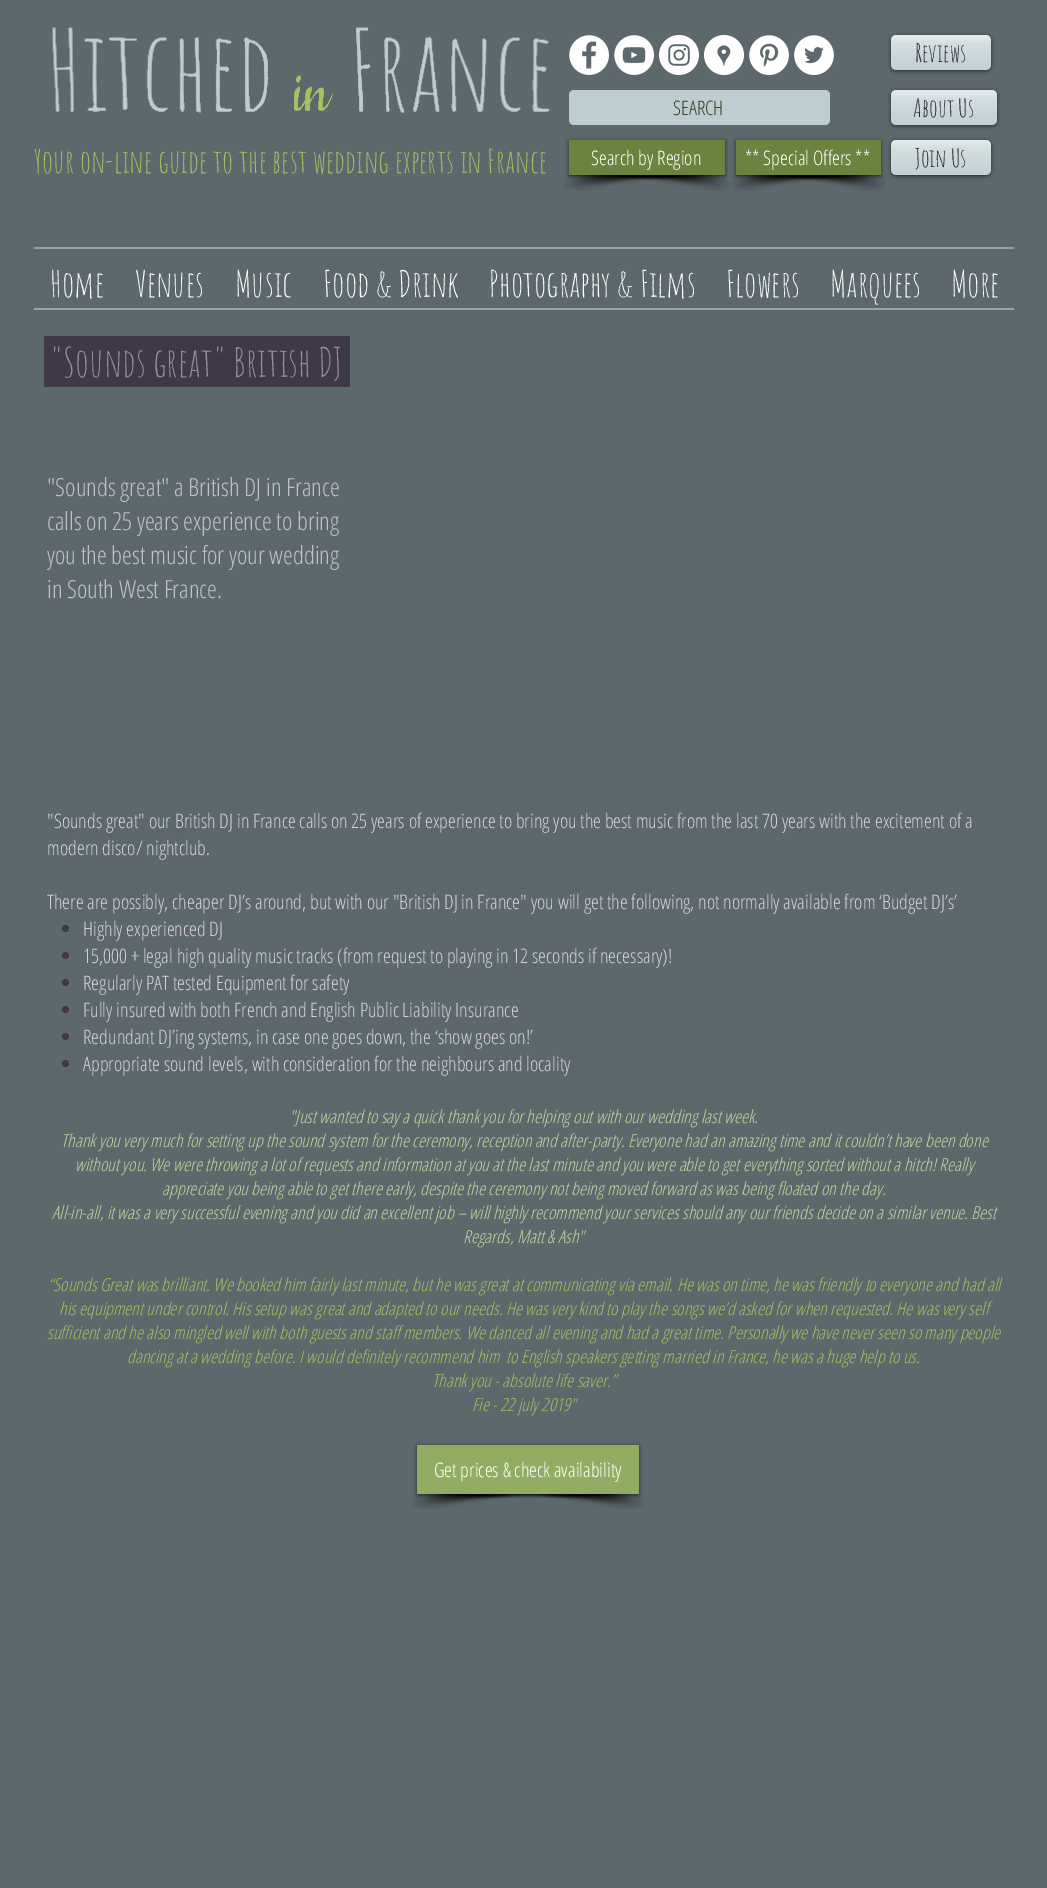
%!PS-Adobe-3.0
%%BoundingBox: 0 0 1047 1888
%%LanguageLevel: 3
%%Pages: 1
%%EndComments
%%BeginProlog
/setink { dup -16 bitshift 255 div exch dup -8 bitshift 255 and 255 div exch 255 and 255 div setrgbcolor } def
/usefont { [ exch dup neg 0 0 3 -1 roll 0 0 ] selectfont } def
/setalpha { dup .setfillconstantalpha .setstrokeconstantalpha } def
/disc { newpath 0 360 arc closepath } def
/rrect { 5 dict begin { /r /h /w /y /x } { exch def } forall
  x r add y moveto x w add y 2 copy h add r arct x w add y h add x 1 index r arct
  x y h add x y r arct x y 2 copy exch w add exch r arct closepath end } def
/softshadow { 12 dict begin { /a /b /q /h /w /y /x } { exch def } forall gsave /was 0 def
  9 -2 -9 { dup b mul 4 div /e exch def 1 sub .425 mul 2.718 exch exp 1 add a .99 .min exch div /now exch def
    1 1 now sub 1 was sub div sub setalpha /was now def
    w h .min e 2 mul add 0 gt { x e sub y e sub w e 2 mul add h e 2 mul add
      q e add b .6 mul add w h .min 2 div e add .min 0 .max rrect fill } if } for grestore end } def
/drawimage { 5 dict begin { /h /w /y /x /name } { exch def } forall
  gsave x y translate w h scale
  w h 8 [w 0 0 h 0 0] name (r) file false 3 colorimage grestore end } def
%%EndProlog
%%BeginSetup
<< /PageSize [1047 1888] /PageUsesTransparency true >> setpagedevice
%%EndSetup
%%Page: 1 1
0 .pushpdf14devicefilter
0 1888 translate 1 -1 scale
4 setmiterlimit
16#5C686C setink
0 0 1047 1888 rectfill
(img1.raw) 52 27 498 86 drawimage
(img2.raw) 569 35 40 40 drawimage
(img3.raw) 614 35 40 40 drawimage
(img4.raw) 659 35 40 40 drawimage
(img5.raw) 704 35 40 40 drawimage
(img6.raw) 749 35 40 40 drawimage
(img7.raw) 794 35 40 40 drawimage
16#000000 setink
891 36 100 35 5 2 0.6 softshadow
16#BECDD1 setink
891 35 100 35 5 rrect fill
(img8.raw) 891 35 100 35 drawimage
/AmaticSC-Regular 25 usefont
16#1F1D24 setink
915 62 moveto (Reviews) show
16#BECDD1 setink
569 90 261 35 5 rrect fill
/OpenSansCondensed-Light 20 usefont
16#354120 setink
673 115 moveto (SEARCH) show
16#000000 setink
891 91 106 35 5 2 0.6 softshadow
16#BECDD1 setink
891 90 106 35 5 rrect fill
(img9.raw) 891 90 106 35 drawimage
/AmaticSC-Regular 25 usefont
16#1F1D24 setink
913 117 moveto (About Us) show
/AmaticSC-Regular 32 usefont
16#A1C460 setink
34 173 moveto (Your on-line guide to the best wedding experts in France) show
(img10.raw) 564 175 140 16 drawimage
(img11.raw) 620 175 110 16 drawimage
16#000000 setink
569 141 156 35 0 2 0.6 softshadow
16#6B8240 setink
569 140 156 35 rectfill
/OpenSansCondensed-Light 20 usefont
16#FFFFFF setink
591 165 moveto (Search by Region) show
(img10.raw) 731 175 140 16 drawimage
(img12.raw) 751 175 135 16 drawimage
16#000000 setink
736 141 145 35 0 2 0.6 softshadow
16#6B8240 setink
736 140 145 35 rectfill
16#FFFFFF setink
745 165 moveto (** Special Offers **) show
16#000000 setink
891 141 100 35 5 2 0.6 softshadow
16#BECDD1 setink
891 140 100 35 5 rrect fill
(img8.raw) 891 140 100 35 drawimage
/AmaticSC-Regular 25 usefont
16#1F1D24 setink
915 167 moveto (Join Us) show
16#92A6A2 setink
34 247 980 2 rectfill
/AmaticSC-Regular 36 usefont
16#FFFFFF setink
[
    [(Home) 50 297]
    [(Venues) 135 297]
    [(Music) 235 297]
    [(Food & Drink) 323 297]
    [(Photography & Films) 489 297]
    [(Flowers) 726 297]
    [(Marquees) 830 297]
    [(More) 951 297]
] { aload pop moveto show } forall
16#92A6A2 setink
34 308 980 2 rectfill
16#3F3947 setink
44 336 306 51 rectfill
/AmaticSC-Regular 40 usefont
16#938D9C setink
50 377 moveto ("Sounds great" British DJ) show
/OpenSansCondensed-Light 25 usefont
16#C5C0CE setink
[
    [("Sounds great" a British DJ in France) 47 496]
    [(calls on 25 years experience to bring) 47 530]
    [(you the best music for your wedding) 47 564]
    [(in South West France.) 47 598]
] { aload pop moveto show } forall
/OpenSansCondensed-Light 20 usefont
16#D6CFE3 setink
[
    [("Sounds great" our British DJ in France calls on 25 years of experience to bring you the best music from the last 70 years with the excitement of a) 47 828]
    [(modern disco/ nightclub.) 47 855]
    [(There are possibly, cheaper DJ’s around, but with our "British DJ in France" you will get the following, not normally available from ‘Budget DJ’s’) 47 909]
] { aload pop moveto show } forall
16#3F3947 setink
65.5 928.5 3.5 disc fill
16#D6CFE3 setink
83 936 moveto (Highly experienced DJ) show
16#3F3947 setink
65.5 955.5 3.5 disc fill
16#D6CFE3 setink
83 963 moveto (15,000 + legal high quality music tracks \(from request to playing in 12 seconds if necessary\)!) show
16#3F3947 setink
65.5 982.5 3.5 disc fill
16#D6CFE3 setink
83 990 moveto (Regularly PAT tested Equipment for safety) show
16#3F3947 setink
65.5 1009.5 3.5 disc fill
16#D6CFE3 setink
83 1017 moveto (Fully insured with both French and English Public Liability Insurance) show
16#3F3947 setink
65.5 1036.5 3.5 disc fill
16#D6CFE3 setink
83 1044 moveto (Redundant DJ’ing systems, in case one goes down, the ‘show goes on!’) show
16#3F3947 setink
65.5 1063.5 3.5 disc fill
16#D6CFE3 setink
83 1071 moveto (Appropriate sound levels, with consideration for the neighbours and locality) show
/OpenSansCondensed-LightItalic 18 usefont
16#C4D7A0 setink
[
    [("Just wanted to say a quick thank you for helping out with our wedding last week.) 289 1123]
    [(Thank you very much for setting up the sound system for the ceremony, reception and after-party. Everyone had an amazing time and it couldn’t have been done) 61 1147]
    [(without you. We were throwing a lot of requests and information at you at the last minute and you were able to get everything sorted without a hitch! Really) 75 1171]
    [(appreciate you being able to get there early, despite the ceremony not being moved forward as was being floated on the day.) 162 1195]
    [(All-in-all, it was a very successful evening and you did an excellent job – will highly recommend your services should any our friends decide on a similar venue. Best) 52 1219]
    [(Regards, Matt & Ash") 463 1243]
] { aload pop moveto show } forall
16#A1C460 setink
[
    [(“Sounds Great was brilliant. We booked him fairly last minute, but he was great at communicating via email. He was on time, he was friendly to everyone and had all) 48 1291]
    [(his equipment under control. His setup was great and adapted to our needs. He was very kind to play the songs we’d asked for when requested. He was very self) 59 1315]
    [(sufficient and he also mingled well with both guests and staff members. We danced all evening and had a great time. Personally we have never seen so many people) 47 1339]
    [(dancing at a wedding before. I would definitely recommend him  to English speakers getting married in France, he was a huge help to us.) 127 1363]
    [(Thank you - absolute life saver.”) 432 1387]
    [(Fie - 22 july 2019") 472 1411]
] { aload pop moveto show } forall
(img10.raw) 412 1494 140 16 drawimage
(img13.raw) 514 1494 130 16 drawimage
16#000000 setink
417 1446 222 49 0 2 0.6 softshadow
16#90AD63 setink
417 1445 222 49 rectfill
/OpenSansCondensed-Light 20 usefont
16#FFFFFF setink
434 1477 moveto (Get prices & check availability) show
.poppdf14devicefilter showpage
%%EOF
